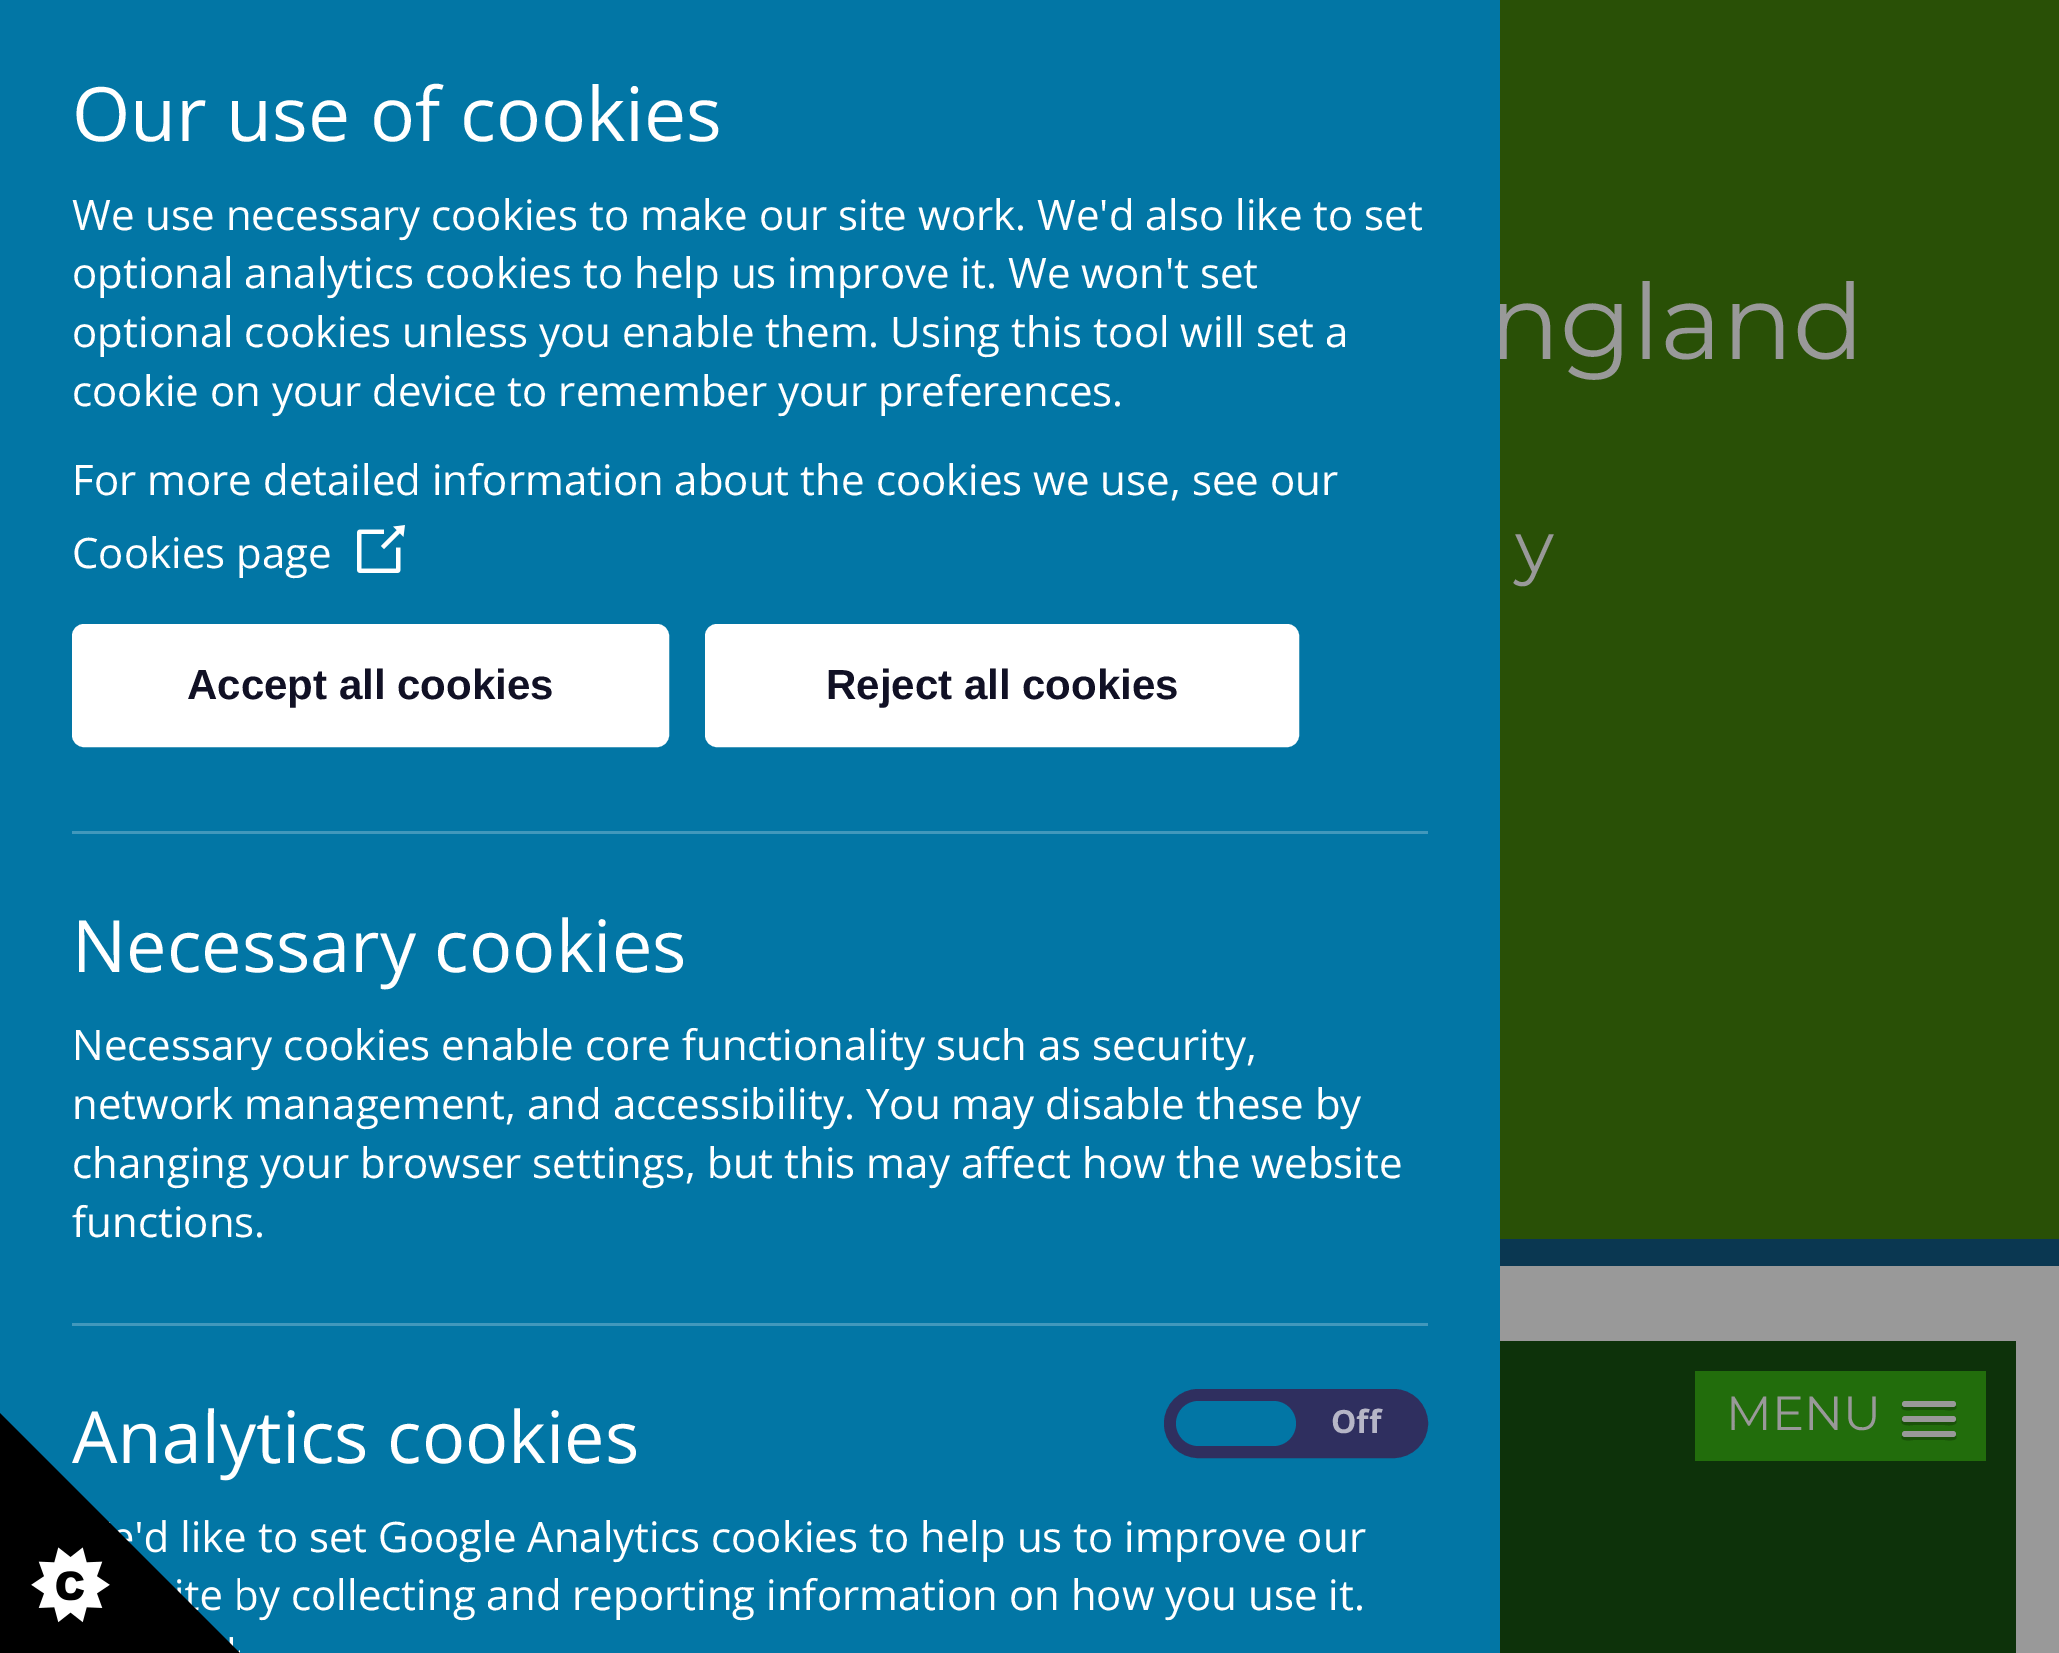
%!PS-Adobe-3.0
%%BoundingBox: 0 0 2059 1653
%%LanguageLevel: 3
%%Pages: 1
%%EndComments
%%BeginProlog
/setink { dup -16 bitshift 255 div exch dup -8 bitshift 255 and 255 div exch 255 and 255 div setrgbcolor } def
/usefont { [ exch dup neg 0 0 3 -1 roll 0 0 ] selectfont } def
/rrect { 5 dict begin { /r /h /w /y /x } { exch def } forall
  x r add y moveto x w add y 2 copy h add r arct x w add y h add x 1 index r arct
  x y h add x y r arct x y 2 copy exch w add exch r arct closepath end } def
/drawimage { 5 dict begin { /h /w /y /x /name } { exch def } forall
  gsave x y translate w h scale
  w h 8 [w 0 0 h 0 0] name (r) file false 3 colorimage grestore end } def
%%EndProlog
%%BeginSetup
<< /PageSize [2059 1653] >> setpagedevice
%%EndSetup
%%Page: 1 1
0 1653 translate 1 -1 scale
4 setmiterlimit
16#999999 setink
0 0 2059 1653 rectfill
16#295006 setink
1500 0 559 1239 rectfill
/Montserrat-Regular 105 usefont
16#999999 setink
1489 359 moveto (ngland) show
16#0276A5 setink
0 0 1500 1653 rectfill
/OpenSans-Regular 75 usefont
16#FFFFFF setink
72 141 moveto (Our use of cookies) show
/OpenSans-Regular 42 usefont
[
    [(We use necessary cookies to make our site work. We'd also like to set) 72 230]
    [(optional analytics cookies to help us improve it. We won't set) 72 288]
    [(optional cookies unless you enable them. Using this tool will set a) 72 347]
    [(cookie on your device to remember your preferences.) 72 406]
    [(For more detailed information about the cookies we use, see our) 72 495]
    [(Cookies page) 72 568]
] { aload pop moveto show } forall
(img1.raw) 357 525 48 48 drawimage
75 627 591 117 9 rrect gsave fill grestore
6 setlinewidth
stroke
/LiberationSans-Bold 42 usefont
16#111125 setink
187 699 moveto (Accept all cookies) show
16#FFFFFF setink
708 627 588 117 9 rrect gsave fill grestore
stroke
16#111125 setink
826 699 moveto (Reject all cookies) show
16#4198BC setink
72 831 1356 3 rectfill
/OpenSans-Regular 72 usefont
16#FFFFFF setink
72 972 moveto (Necessary cookies) show
/OpenSans-Regular 42 usefont
[
    [(Necessary cookies enable core functionality such as security,) 72 1060]
    [(network management, and accessibility. You may disable these by) 72 1119]
    [(changing your browser settings, but this may affect how the website) 72 1178]
    [(functions.) 72 1237]
] { aload pop moveto show } forall
16#4198BC setink
72 1323 1356 3 rectfill
/OpenSans-Regular 72 usefont
16#FFFFFF setink
72 1463 moveto (Analytics cookies) show
16#2F2F5F setink
1170 1395 252 57 28.5 rrect gsave fill grestore
12 setlinewidth
stroke
16#0276A5 setink
1176 1401 120 45 22.5 rrect fill
/OpenSans-Bold 32 usefont
16#B6B6C7 setink
1331 1433 moveto (Off) show
/OpenSans-Regular 42 usefont
16#FFFFFF setink
134 1552 moveto ('d like to set Google Analytics cookies to help us to improve our) show
184 1610 moveto (te by collecting and reporting information on how you use it.) show
(img2.raw) 0 1413 240 240 drawimage
16#0A3751 setink
1500 1239 559 27 rectfill
/Montserrat-Regular 72 usefont
16#999999 setink
1515 572 moveto (y) show
16#0D320A setink
1500 1341 516 312 rectfill
16#226D0C setink
1695 1371 291 90 rectfill
/Montserrat-Regular 48 usefont
16#999999 setink
1726 1430 moveto (MENU) show
16#1A5209 setink
1902 1406 moveto 1899 1412 1913 1410 1913 1410 curveto 1945 1410 lineto 1945 1410 1959 1412 1956 1406 curveto 1955 1406 1954 1407 1953 1407 curveto 1905 1407 lineto 1904 1407 1903 1406 1902 1406 curveto closepath fill
16#999999 setink
1902 1401 54 6 3 rrect fill
16#1A5209 setink
1902 1420 moveto 1899 1427 1913 1425 1913 1425 curveto 1945 1425 lineto 1945 1425 1959 1427 1956 1420 curveto 1955 1421 1954 1422 1953 1422 curveto 1905 1422 lineto 1904 1422 1903 1421 1902 1420 curveto closepath fill
16#999999 setink
1902 1416 54 6 3 rrect fill
16#1A5209 setink
1902 1436 moveto 1899 1442 1913 1440 1913 1440 curveto 1945 1440 lineto 1945 1440 1959 1442 1956 1436 curveto 1955 1436 1954 1437 1953 1437 curveto 1905 1437 lineto 1904 1437 1903 1436 1902 1436 curveto closepath fill
16#999999 setink
1902 1431 54 6 3 rrect fill
showpage
%%EOF
